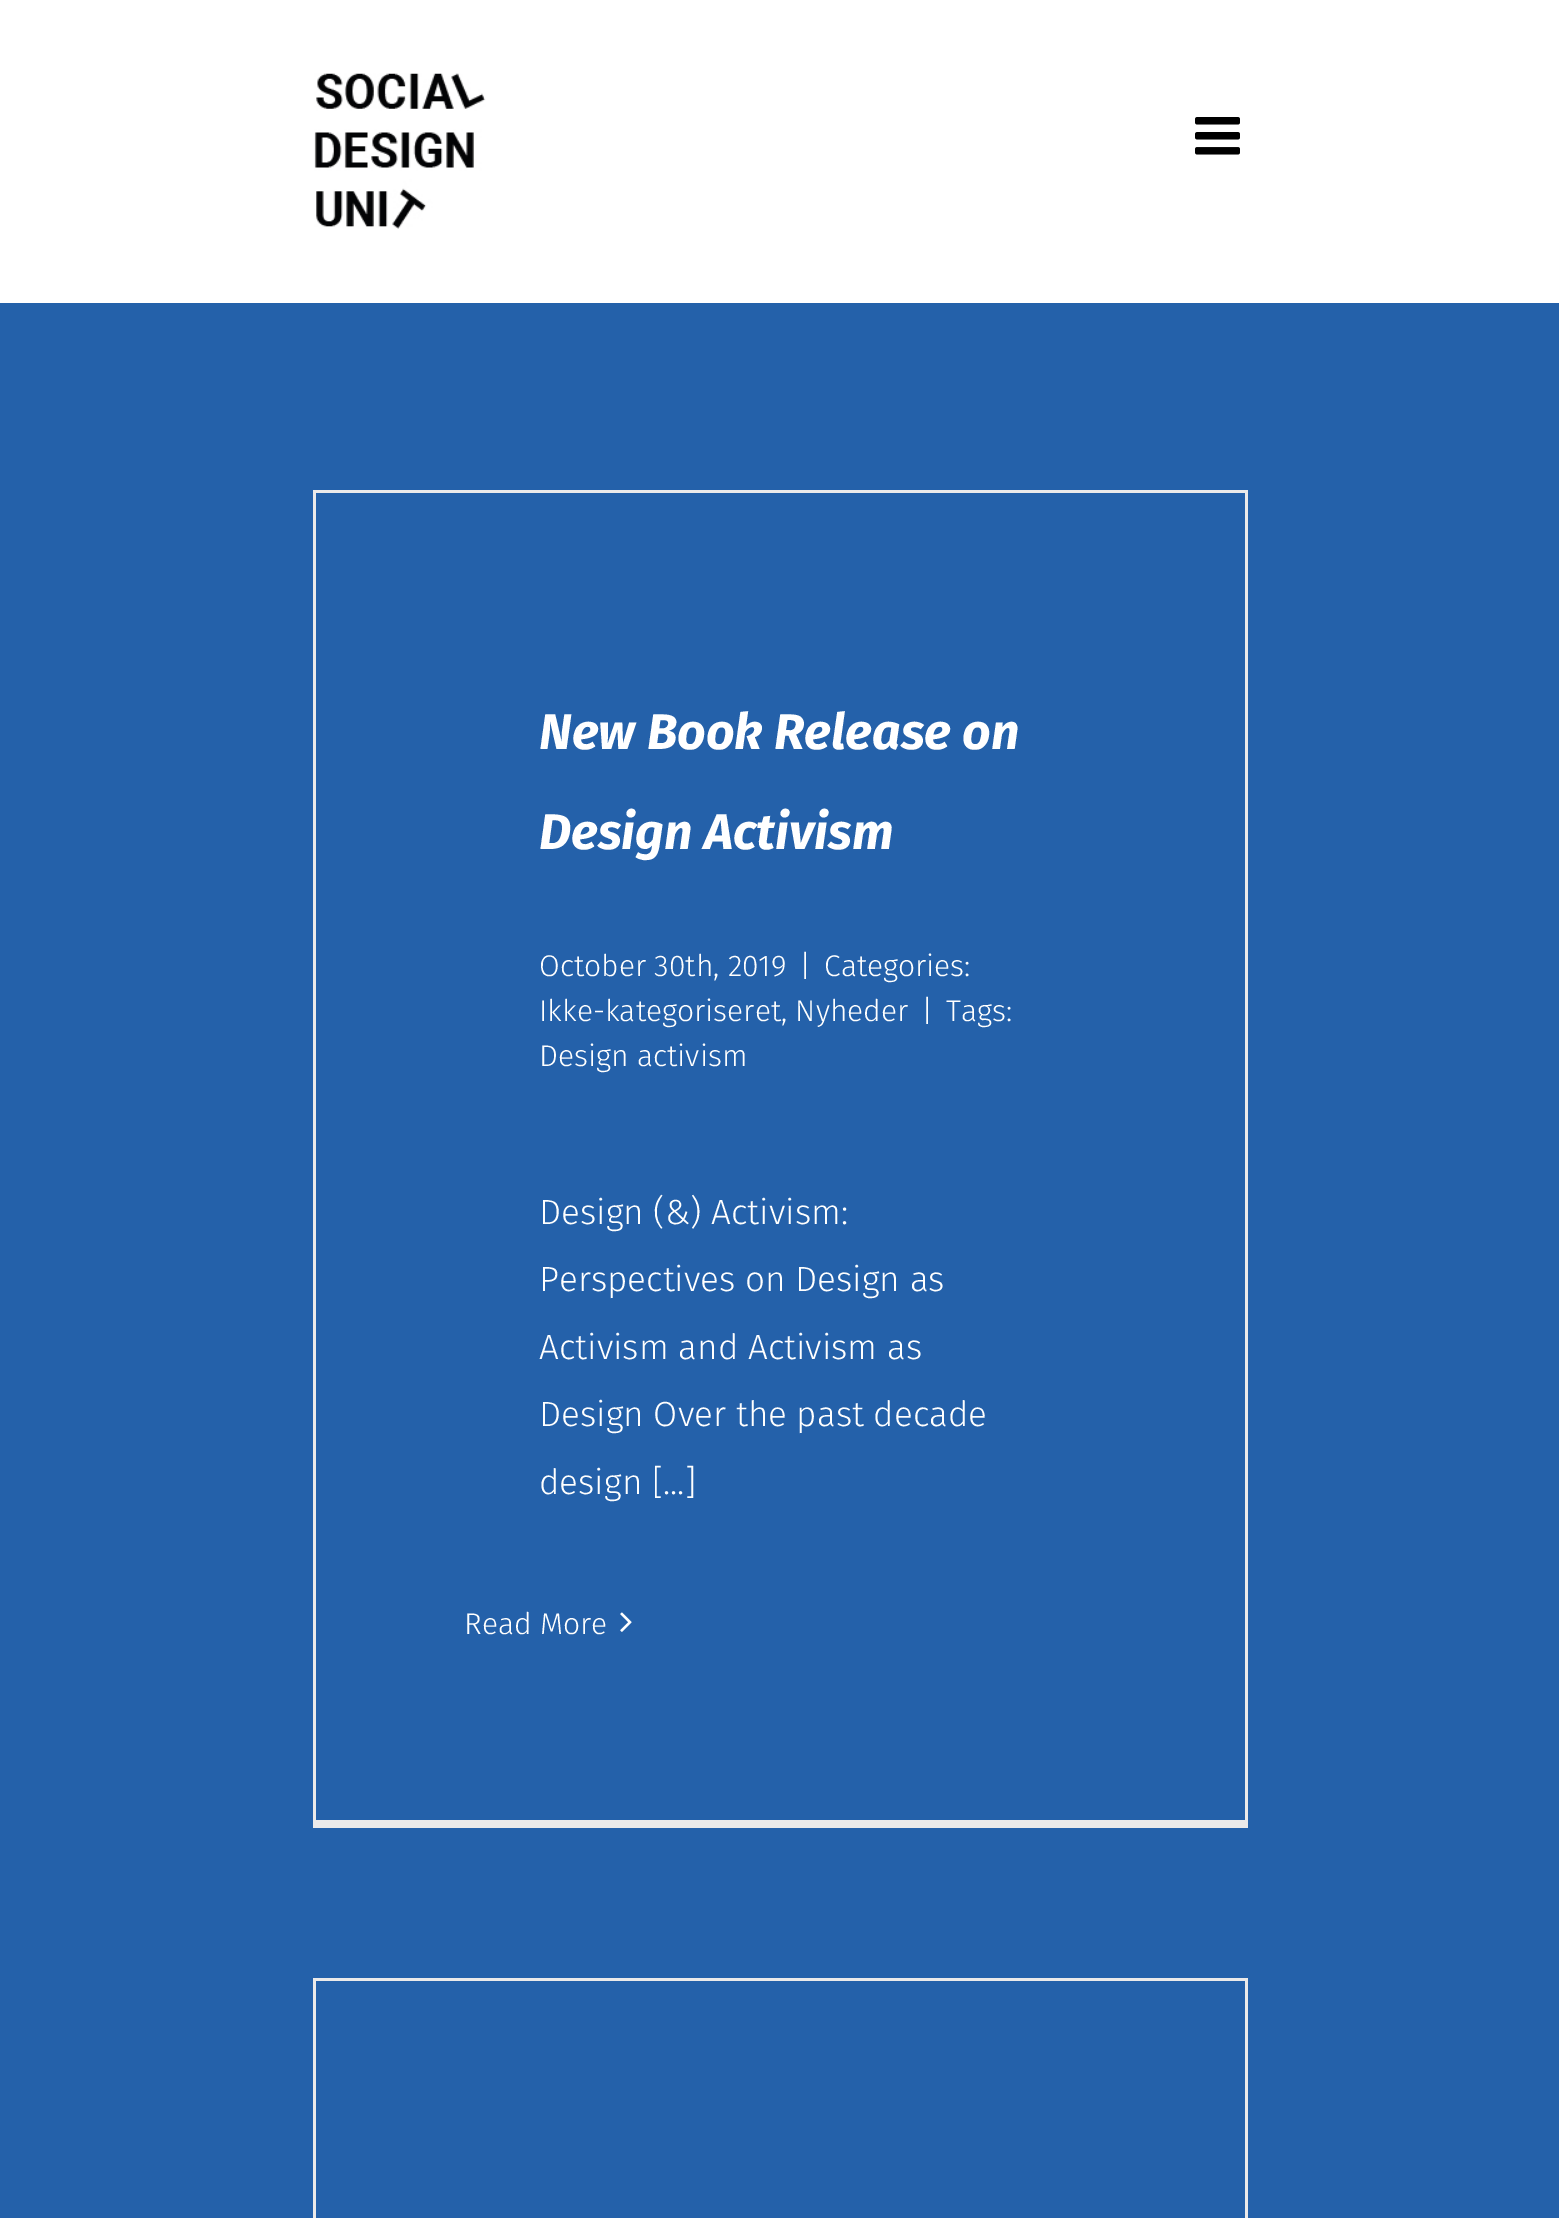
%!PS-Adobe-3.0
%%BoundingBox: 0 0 1559 2218
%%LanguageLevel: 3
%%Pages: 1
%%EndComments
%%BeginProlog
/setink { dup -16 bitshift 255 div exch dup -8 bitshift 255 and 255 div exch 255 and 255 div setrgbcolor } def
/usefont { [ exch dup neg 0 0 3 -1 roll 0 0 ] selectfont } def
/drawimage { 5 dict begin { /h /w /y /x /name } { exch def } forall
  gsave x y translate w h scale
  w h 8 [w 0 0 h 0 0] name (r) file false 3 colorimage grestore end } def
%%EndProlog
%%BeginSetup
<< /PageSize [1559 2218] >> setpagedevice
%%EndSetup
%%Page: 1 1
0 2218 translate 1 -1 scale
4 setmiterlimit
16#2461AA setink
0 0 1559 2218 rectfill
16#FFFFFF setink
0 0 1559 303 rectfill
(img1.raw) 314 73 172 156 drawimage
(img2.raw) 1195 117 45 38 drawimage
[
    [313 490 935 3 16#EBEAEA]
    [1245 490 3 1338 16#EBEAEA]
    [313 1820 935 8 16#EBEAEA]
    [313 490 3 1338 16#EBEAEA]
] { aload pop setink rectfill } forall
/FiraSans-BoldItalic 50 usefont
16#FFFFFF setink
539 749 moveto (New Book Release on) show
539 849 moveto (Design Activism) show
/FiraSans-Light 30 usefont
[
    [(October 30th, 2019) 539 976]
    [(|) 799 976]
    [(Categories:) 824 976]
    [(Ikke-kategoriseret, Nyheder) 539 1021]
    [(|) 921 1021]
    [(Tags:) 946 1021]
    [(Design activism) 539 1066]
] { aload pop moveto show } forall
/FiraSans-Light 35 usefont
[
    [(Design \(&\) Activism:) 539 1224]
    [(Perspectives on Design as) 539 1291]
    [(Activism and Activism as) 539 1359]
    [(Design Over the past decade) 539 1426]
    [(design [...]) 539 1494]
] { aload pop moveto show } forall
/FiraSans-Light 30 usefont
464 1634 moveto (Read More) show
(img3.raw) 620 1612 12 20 drawimage
[
    [313 1978 935 3 16#EBEAEA]
    [1245 1978 3 240 16#EBEAEA]
    [313 1978 3 240 16#EBEAEA]
] { aload pop setink rectfill } forall
showpage
%%EOF
